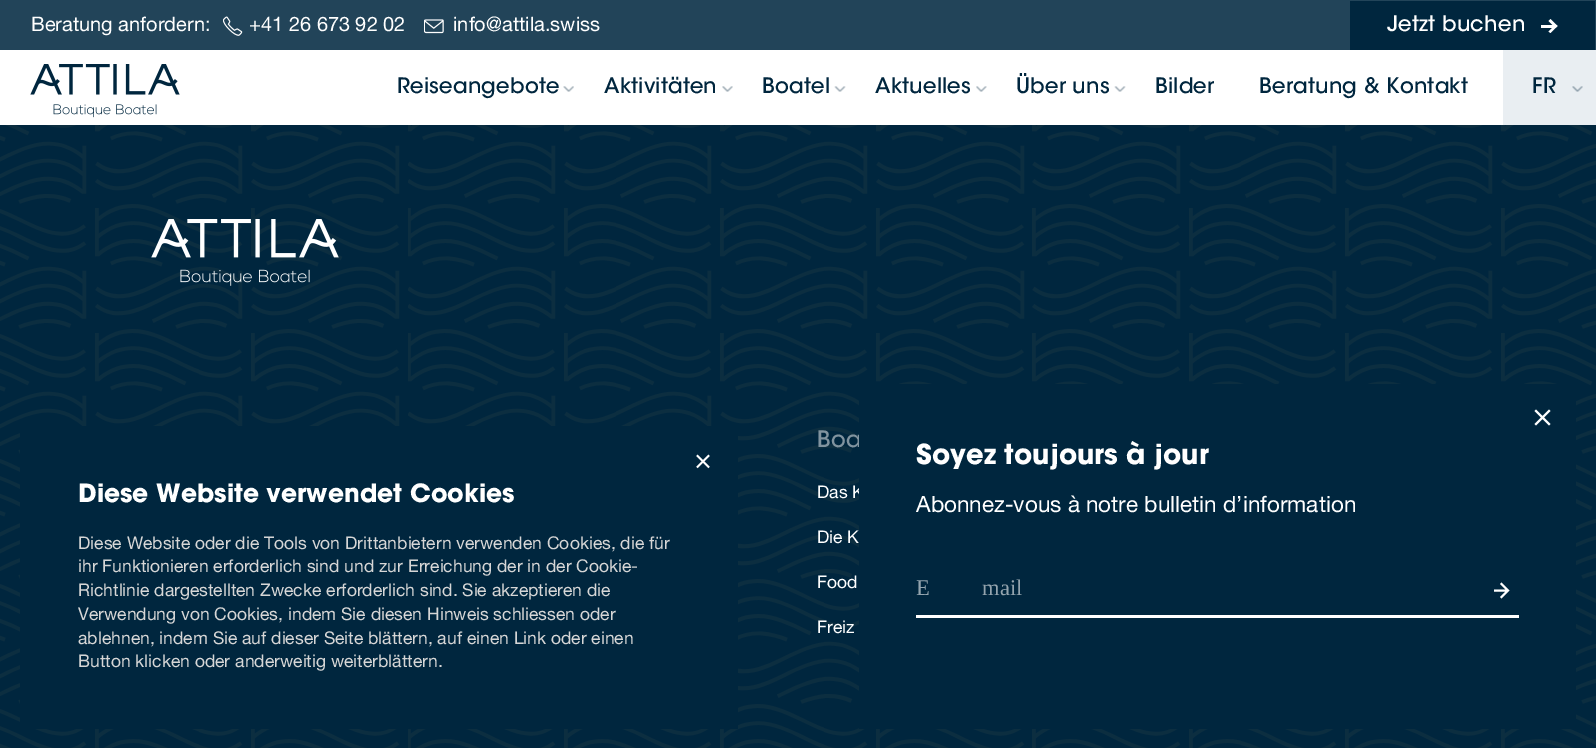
%!PS-Adobe-3.0
%%BoundingBox: 0 0 1596 748
%%LanguageLevel: 3
%%Pages: 1
%%EndComments
%%BeginProlog
/setink { dup -16 bitshift 255 div exch dup -8 bitshift 255 and 255 div exch 255 and 255 div setrgbcolor } def
/usefont { [ exch dup neg 0 0 3 -1 roll 0 0 ] selectfont } def
/drawimage { 5 dict begin { /h /w /y /x /name } { exch def } forall
  gsave x y translate w h scale
  w h 8 [w 0 0 h 0 0] name (r) file false 3 colorimage grestore end } def
%%EndProlog
%%BeginSetup
<< /PageSize [1596 748] >> setpagedevice
%%EndSetup
%%Page: 1 1
0 748 translate 1 -1 scale
4 setmiterlimit
16#00263E setink
0 0 1596 748 rectfill
16#224459 setink
0 0 1596 50 rectfill
/HelveticaNeue-Regular 20 usefont
16#FFFFFF setink
31 31 moveto (Beratung anfordern:) show
(img1.raw) 223 16 20 20 drawimage
249 31 moveto (+41 26 673 92 02) show
(img2.raw) 424 19 20 15 drawimage
453 31 moveto (info@attila.swiss) show
16#00263E setink
1350 1 245 49 rectfill
/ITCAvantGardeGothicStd-Medium 21.25 usefont
16#FFFFFF setink
1387 31 moveto 0.2 0 (Jetzt buchen) ashow
1541 25 14 3 rectfill
1550.5 19 moveto 1557.5 26 lineto 1555.5 28 lineto 1548.5 21 lineto closepath fill
1555.5 24.5 moveto 1557.5 26 lineto 1550.5 33 lineto 1548.5 31.5 lineto closepath fill
0 50 1503 75 rectfill
(img3.raw) 30 64 150 54 drawimage
16#00263E setink
397 93 moveto 0.2 0 (Reiseangebote) ashow
(img4.raw) 563 86 11 6 drawimage
604 93 moveto 0.2 0 (Aktivitäten) ashow
(img5.raw) 722 86 11 6 drawimage
762 93 moveto 0.2 0 (Boatel) ashow
(img6.raw) 834 86 12 6 drawimage
875 93 moveto 0.2 0 (Aktuelles) ashow
(img7.raw) 976 86 11 6 drawimage
1016 93 moveto 0.2 0 (Über uns) ashow
(img6.raw) 1114 86 12 6 drawimage
1155 93 moveto 0.2 0 (Bilder) ashow
1259 93 moveto 0.2 0 (Beratung & Kontakt) ashow
16#E9EEF2 setink
1503 50 93 75 rectfill
16#00263E setink
1532 93 moveto 0.2 0 (FR) ashow
(img8.raw) 1572 86 11 6 drawimage
(img9.raw) 0 125 1596 623 drawimage
20 426 718 303 rectfill
/HelveticaNeue-Regular 30 usefont
16#FFFFFF setink
694 469 moveto (×) show
/ITCAvantGardeGothicStd-Bold 25 usefont
78 502 moveto (Diese Website verwendet Cookies) show
/HelveticaNeue-Regular 17.5 usefont
16#D6D6D6 setink
[
    [(Diese Website oder die Tools von Drittanbietern verwenden Cookies, die für) 78 549]
    [(ihr Funktionieren erforderlich sind und zur Erreichung der in der Cookie-) 78 572]
    [(Richtlinie dargestellten Zwecke erforderlich sind. Sie akzeptieren die) 78 596]
    [(Verwendung von Cookies, indem Sie diesen Hinweis schliessen oder) 78 620]
    [(ablehnen, indem Sie auf dieser Seite blättern, auf einen Link oder einen) 78 644]
    [(Button klicken oder anderweitig weiterblättern.) 78 667]
] { aload pop moveto show } forall
(img10.raw) 151 219 188 67 drawimage
/ITCAvantGardeGothicStd-Medium 22.5 usefont
16#81939F setink
817 447 moveto 0.2 0 (Boa) ashow
/HelveticaNeue-Regular 17.5 usefont
16#FFFFFF setink
[
    [(Das K) 817 498]
    [(Die K) 817 543]
    [(Food) 817 588]
    [(Freiz) 817 633]
] { aload pop moveto show } forall
16#00263E setink
859 384 717 345 rectfill
16#FFFFFF setink
2 setlinewidth
2 setlinecap
1536 411 moveto 1542.5 417.5 lineto 1536 424 lineto 1549 411 moveto 1542.5 417.5 lineto 1549 424 lineto stroke
/ITCAvantGardeGothicStd-Bold 27.5 usefont
916 464 moveto (Soyez toujours à jour) show
/HelveticaNeue-Regular 22.5 usefont
916 512 moveto (Abonnez-vous à notre bulletin d’information) show
/LiberationSerif-Regular 22.5 usefont
16#94A4AE setink
916 595 moveto (E‑mail) show
16#FFFFFF setink
916 615 603 3 rectfill
1.9 setlinewidth
1495 590.5 moveto 1507 590.5 lineto 1501.5 584 moveto 1508 590.5 lineto 1501.5 597 lineto stroke
showpage
%%EOF
